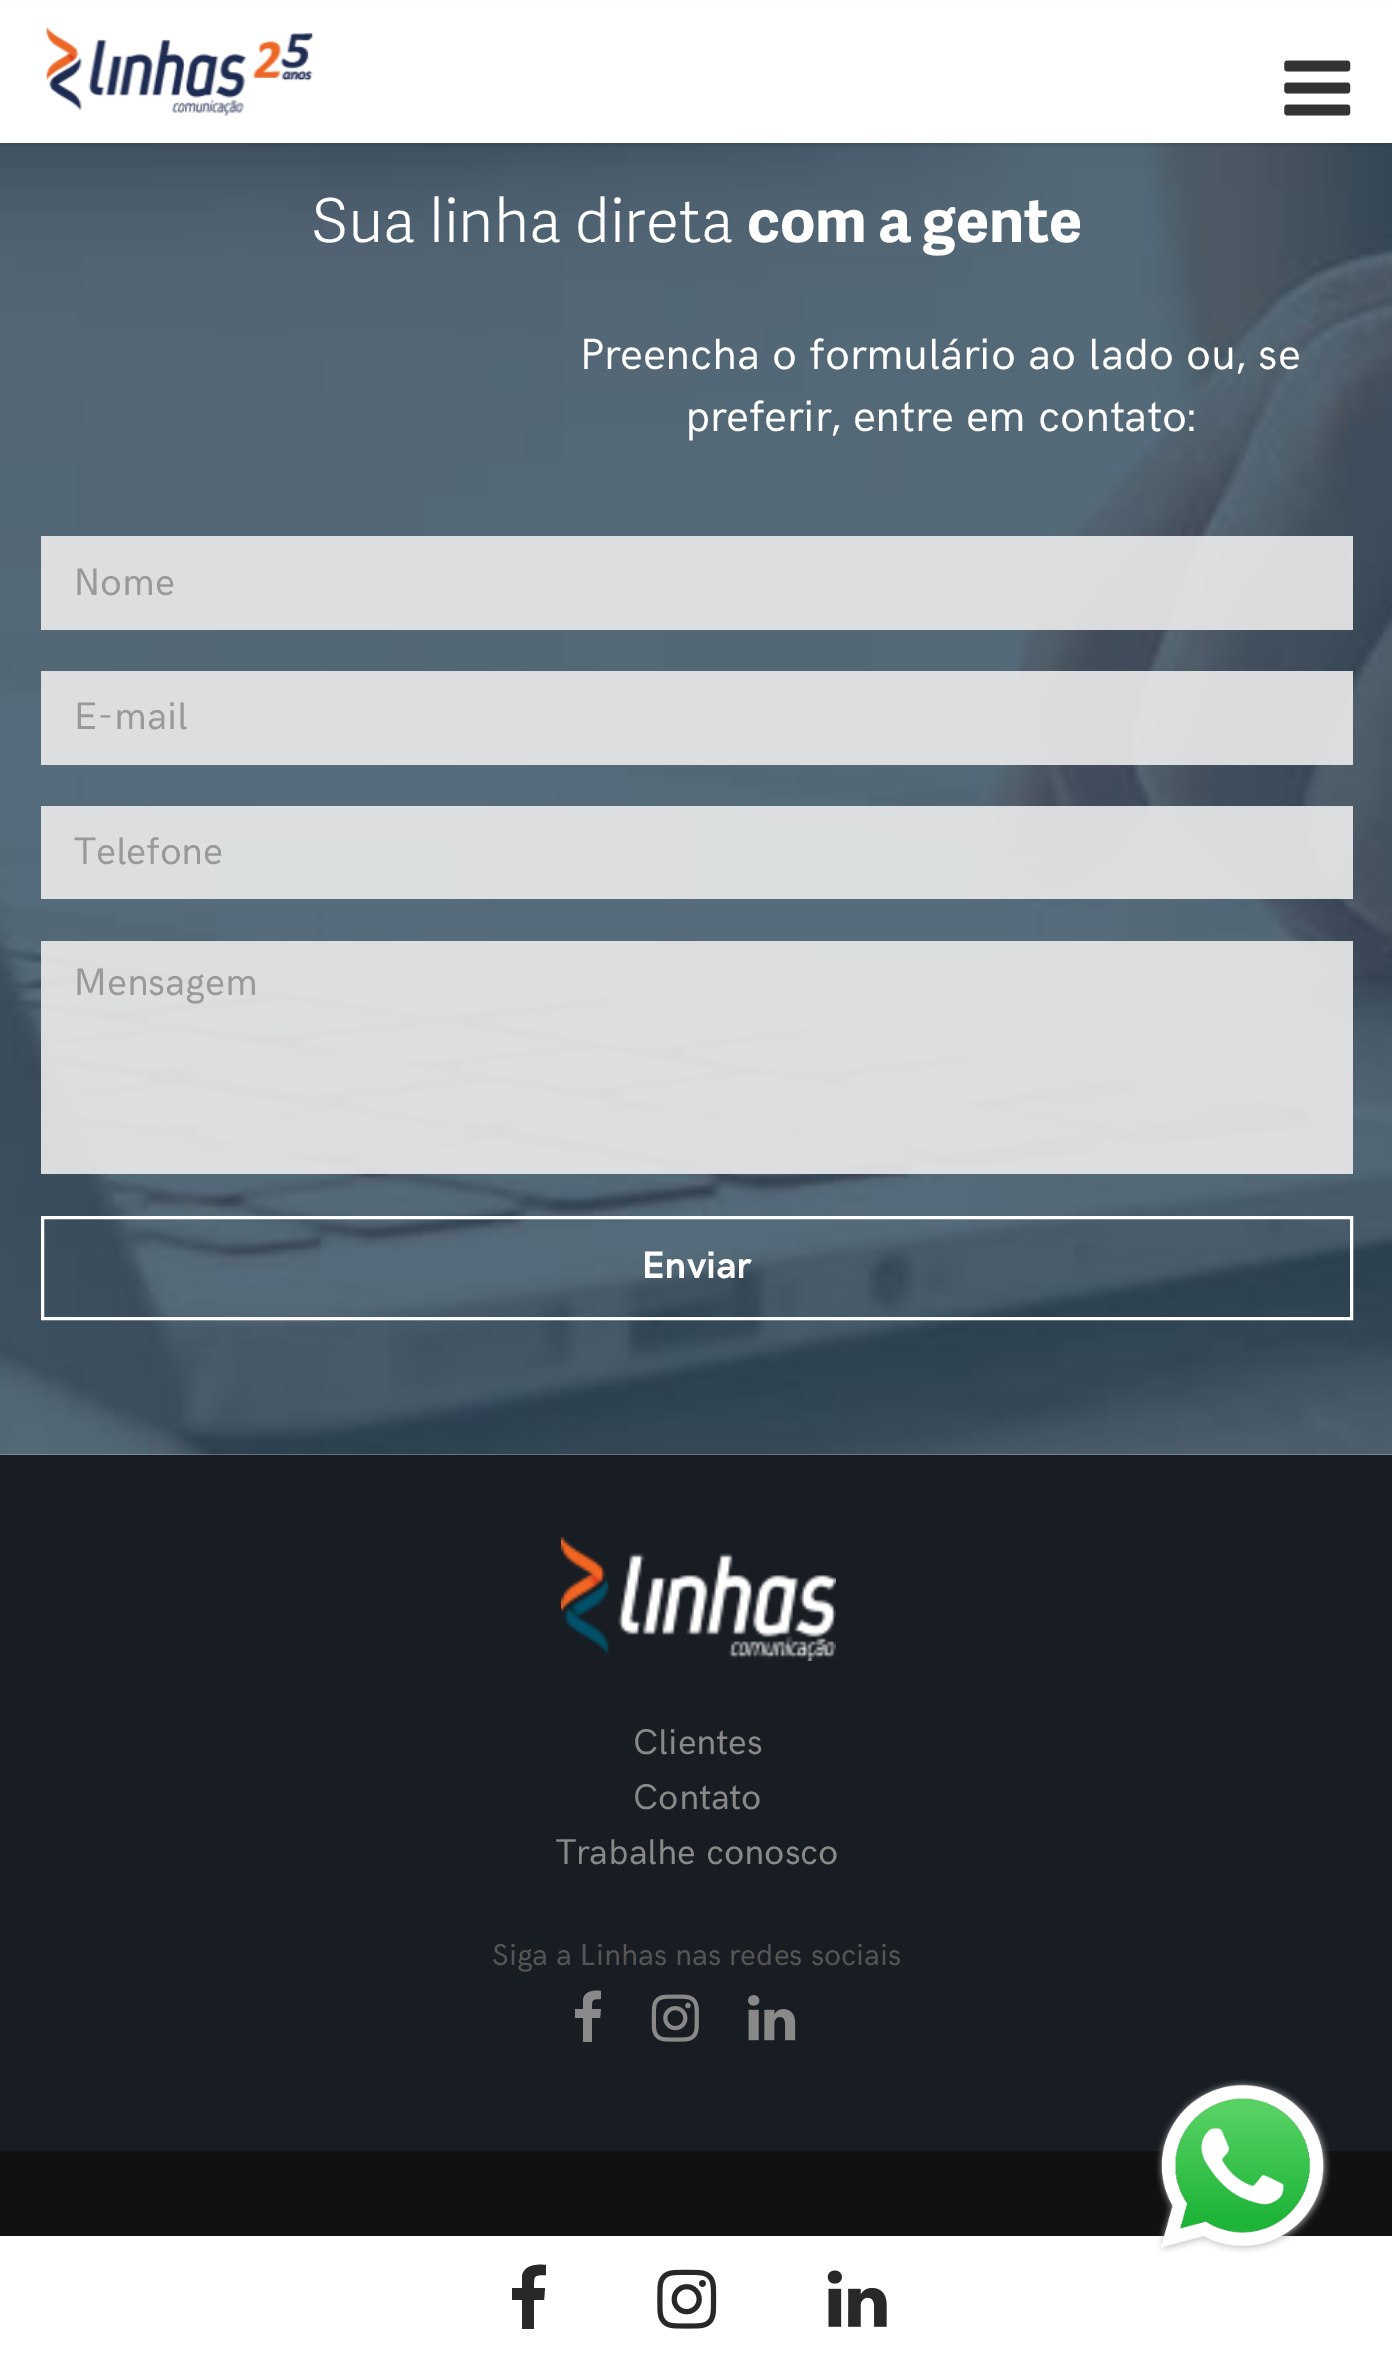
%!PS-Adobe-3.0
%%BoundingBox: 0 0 1392 2372
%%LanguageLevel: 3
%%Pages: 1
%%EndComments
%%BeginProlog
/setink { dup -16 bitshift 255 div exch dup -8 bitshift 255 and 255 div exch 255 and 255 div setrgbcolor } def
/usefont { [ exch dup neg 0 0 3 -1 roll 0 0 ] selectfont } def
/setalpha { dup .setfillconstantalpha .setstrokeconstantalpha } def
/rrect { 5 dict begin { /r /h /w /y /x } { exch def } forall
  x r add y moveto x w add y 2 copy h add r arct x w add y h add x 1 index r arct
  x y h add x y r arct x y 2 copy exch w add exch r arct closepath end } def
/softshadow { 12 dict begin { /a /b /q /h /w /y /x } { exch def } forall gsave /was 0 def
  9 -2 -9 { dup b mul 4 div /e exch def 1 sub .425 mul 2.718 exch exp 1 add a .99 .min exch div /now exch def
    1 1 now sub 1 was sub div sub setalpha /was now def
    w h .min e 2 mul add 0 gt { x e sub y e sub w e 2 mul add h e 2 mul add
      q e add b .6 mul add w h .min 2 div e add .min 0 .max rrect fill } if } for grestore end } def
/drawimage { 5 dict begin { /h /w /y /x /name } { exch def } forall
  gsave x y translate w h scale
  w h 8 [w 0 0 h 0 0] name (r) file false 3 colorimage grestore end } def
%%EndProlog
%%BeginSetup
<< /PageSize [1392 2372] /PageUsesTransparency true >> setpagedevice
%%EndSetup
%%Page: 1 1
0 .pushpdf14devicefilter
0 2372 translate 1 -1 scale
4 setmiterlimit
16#FFFFFF setink
0 0 1392 2372 rectfill
(img3.raw) 0 143 1392 1312 drawimage
16#000000 setink
0 3 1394 143 0 1.5 0.1 softshadow
16#FFFFFF setink
0 1 1392 142 rectfill
(img1.raw) 46 27 267 89 drawimage
(img2.raw) 1284 60 67 56 drawimage
/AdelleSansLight-Light 60.5 usefont
312 242 moveto (Sua linha direta) show
/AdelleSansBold-Bold 60.5 usefont
747 242 moveto (com a gente) show
/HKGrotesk-Regular 44 usefont
580 369 moveto (Preencha o formulário ao lado ou, se) show
685 431 moveto (preferir, entre em contato:) show
0.9 setalpha
16#EBEBEB setink
41 536 1312 94 rectfill
/HKGrotesk-Regular 38.5 usefont
1 setalpha
16#999999 setink
74 595 moveto (Nome) show
0.9 setalpha
16#EBEBEB setink
41 671 1312 94 rectfill
1 setalpha
16#999999 setink
74 729 moveto (E-mail) show
0.9 setalpha
16#EBEBEB setink
41 806 1312 93 rectfill
1 setalpha
16#999999 setink
74 864 moveto (Telefone) show
0.9 setalpha
16#EBEBEB setink
41 941 1312 233 rectfill
1 setalpha
16#999999 setink
74 995 moveto (Mensagem) show
16#FFFFFF setink
3 setlinewidth
42.5 1217.5 1309 101 rectstroke
/HKGrotesk-Bold 38.5 usefont
642 1278 moveto (Enviar) show
16#181D24 setink
0 1455 1392 696 rectfill
(img4.raw) 561 1537 275 124 drawimage
/HKGrotesk-Regular 35.75 usefont
16#898989 setink
[
    [(Clientes) 633 1754]
    [(Contato) 633 1809]
    [(Trabalhe conosco) 556 1864]
] { aload pop moveto show } forall
/HKGrotesk-Regular 30.25 usefont
16#555555 setink
492 1965 moveto (Siga a Linhas nas redes sociais) show
16#898989 setink
601 1991 moveto 601 1999 lineto 591 1999 592 2000 592 2009 curveto 601 2009 lineto 600 2018 lineto 592 2018 lineto 592 2042 lineto 583 2042 lineto 583 2018 lineto 575 2018 lineto 575 2009 lineto 583 2009 lineto 583 2000 lineto 584 1991 594 1990 601 1991 curveto closepath fill
(img5.raw) 651 1994 48 48 drawimage
(img6.raw) 748 1995 48 46 drawimage
16#111111 setink
0 2151 1392 85 rectfill
(img7.raw) 1156 2079 175 174 drawimage
16#282828 setink
546 2265 moveto 546 2275 lineto 533 2275 534 2276 534 2288 curveto 545 2288 lineto 544 2300 lineto 534 2300 lineto 534 2329 lineto 522 2329 lineto 522 2300 lineto 512 2300 lineto 512 2288 lineto 522 2288 lineto 522 2276 lineto 524 2265 536 2264 546 2265 curveto closepath fill
(img8.raw) 657 2269 60 60 drawimage
(img9.raw) 827 2270 60 57 drawimage
.poppdf14devicefilter showpage
%%EOF
